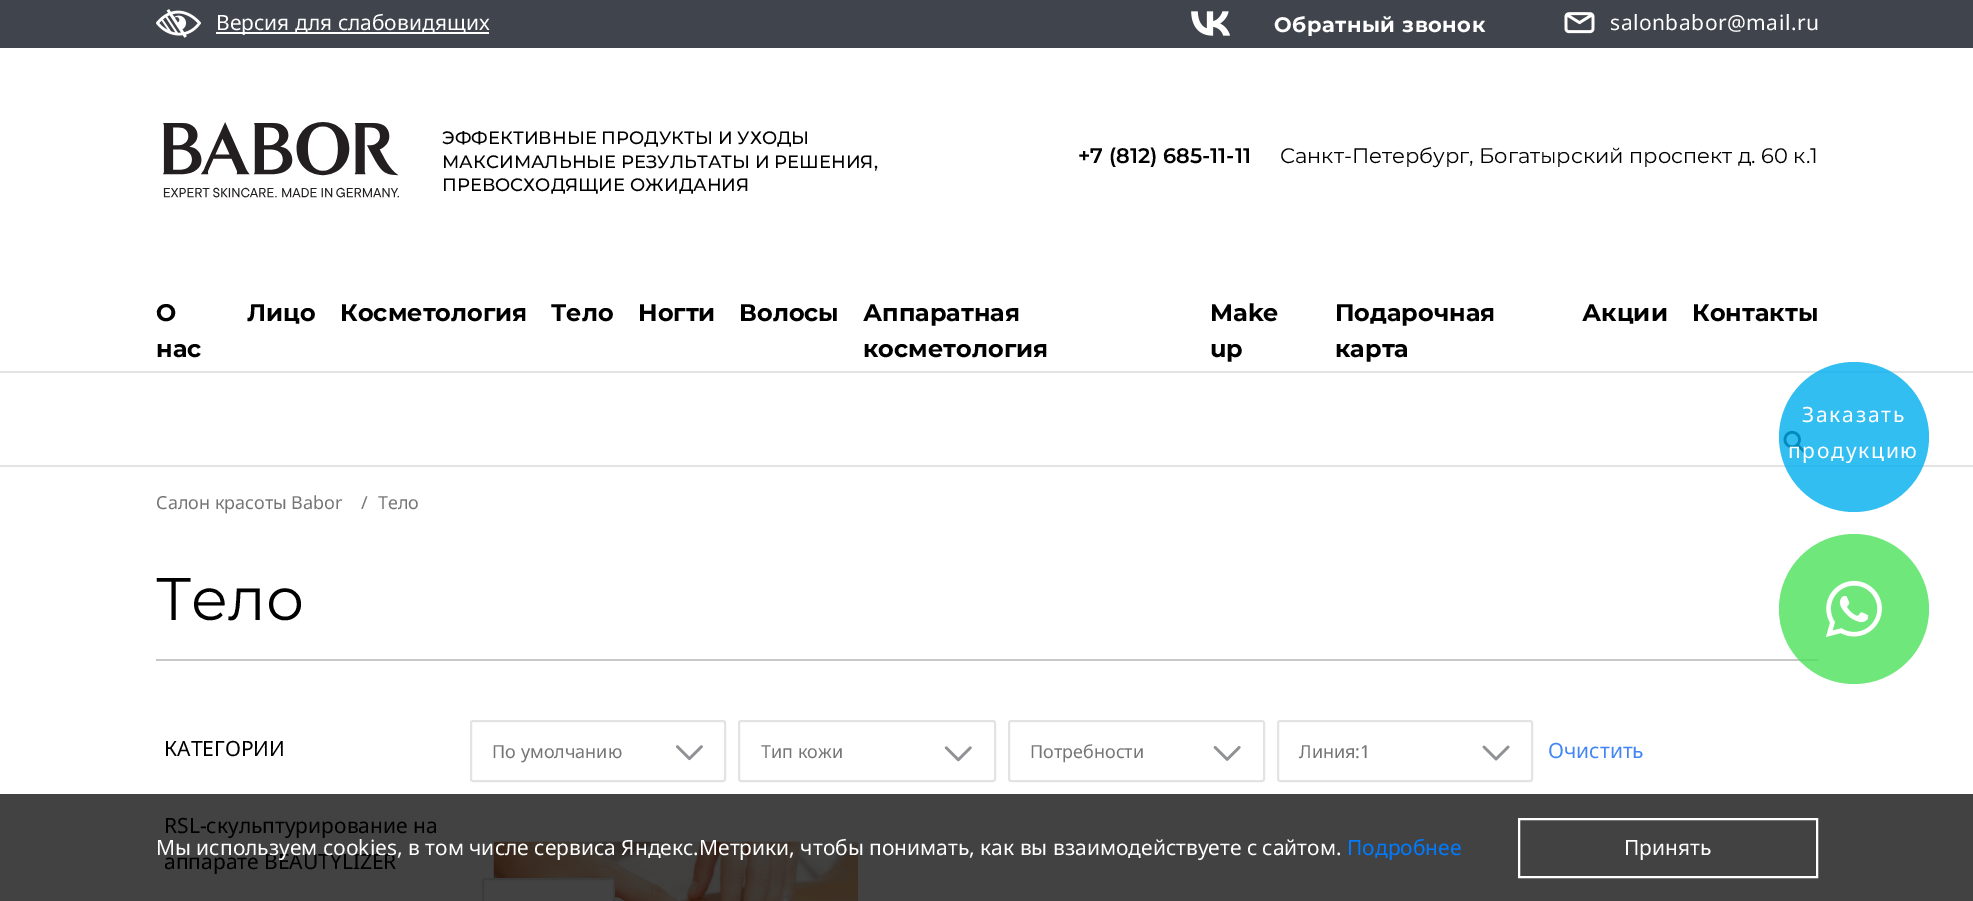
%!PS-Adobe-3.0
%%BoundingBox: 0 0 1973 901
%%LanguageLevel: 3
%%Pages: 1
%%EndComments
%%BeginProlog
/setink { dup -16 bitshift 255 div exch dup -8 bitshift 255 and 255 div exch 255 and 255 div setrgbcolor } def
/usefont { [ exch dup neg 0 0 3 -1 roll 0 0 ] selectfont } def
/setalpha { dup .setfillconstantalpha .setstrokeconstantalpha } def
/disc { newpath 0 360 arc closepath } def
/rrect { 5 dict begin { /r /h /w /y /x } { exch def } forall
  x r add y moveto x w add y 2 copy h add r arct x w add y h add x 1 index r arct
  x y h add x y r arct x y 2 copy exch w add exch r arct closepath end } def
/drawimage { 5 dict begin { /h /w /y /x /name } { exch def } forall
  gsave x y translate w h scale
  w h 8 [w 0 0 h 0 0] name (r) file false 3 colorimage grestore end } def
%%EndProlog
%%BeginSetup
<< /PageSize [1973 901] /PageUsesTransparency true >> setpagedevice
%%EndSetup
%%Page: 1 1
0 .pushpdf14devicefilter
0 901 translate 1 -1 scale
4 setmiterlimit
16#FFFFFF setink
0 0 1973 901 rectfill
[
    [0 794 1973 107 16#424242]
    [0 465 1973 2 16#E3E3E3]
    [0 0 1973 48 16#40444C]
] { aload pop setink rectfill } forall
(img1.raw) 156 9 45 29 drawimage
16#FFFFFF setink
216 32 273 2 rectfill
/NotoSans-Regular 21 usefont
216 30 moveto (Версия для слабовидящих) show
(img2.raw) 1191 11 39 25 drawimage
/Montserrat-Bold 21 usefont
1274 32 moveto 0.5 0 (Обратный звонок) ashow
(img3.raw) 1564 12 31 22 drawimage
/NotoSans-Regular 21 usefont
1610 30 moveto 0.5 0 (salonbabor@mail.ru) ashow
(img4.raw) 163 122 236 76 drawimage
/Montserrat-Medium 18 usefont
16#000000 setink
[
    [(ЭФФЕКТИВНЫЕ ПРОДУКТЫ И УХОДЫ) 442 144]
    [(МАКСИМАЛЬНЫЕ РЕЗУЛЬТАТЫ И РЕШЕНИЯ,) 442 168]
    [(ПРЕВОСХОДЯЩИЕ ОЖИДАНИЯ) 442 191]
] { aload pop moveto show } forall
/Montserrat-SemiBold 21 usefont
1078 163 moveto (+7 \(812\) 685-11-11) show
/Montserrat-Regular 21 usefont
1280 163 moveto (Санкт-Петербург, Богатырский проспект д. 60 к.1) show
/Montserrat-Bold 24 usefont
[
    [(О) 156 321]
    [(нас) 156 357]
    [(Лицо) 247 321]
    [(Косметология) 340 321]
    [(Тело) 551 321]
    [(Ногти) 638 321]
    [(Волосы) 739 321]
    [(Аппаратная) 863 321]
    [(косметология) 863 357]
    [(Make) 1210 321]
    [(up) 1210 357]
    [(Подарочная) 1335 321]
    [(карта) 1335 357]
    [(Акции) 1582 321]
    [(Контакты) 1692 321]
] { aload pop moveto show } forall
(img5.raw) 1783 430 23 24 drawimage
16#E3E3E3 setink
0 371 1973 2 rectfill
0.8 setalpha
16#00AEEF setink
1854 437 75 disc fill
/NotoSans-Regular 21 usefont
1 setalpha
16#FFFFFF setink
1802 422 moveto 1.75 0 (Заказать) ashow
1788 458 moveto 1.75 0 (продукцию) ashow
16#C7C7C7 setink
156 659 1662 2 rectfill
0.8 setalpha
16#4BE15A setink
1854 609 75 disc fill
1 setalpha
(img6.raw) 1826 580 56 57 drawimage
/NotoSans-Regular 18 usefont
16#757575 setink
[
    [(Салон красоты Babor) 156 509]
    [(/) 361 509]
    [(Тело) 378 509]
] { aload pop moveto show } forall
/Montserrat-Regular 60 usefont
16#000000 setink
156 620 moveto (Тело) show
/NotoSans-Regular 21 usefont
[
    [(КАТЕГОРИИ) 164 756]
    [(RSL-скульптурирование на) 164 833]
    [(аппарате BEAUTYLIZER) 164 869]
] { aload pop moveto show } forall
16#E3E3E3 setink
2 setlinewidth
471 721 254 60 2 rrect stroke
/NotoSans-Regular 18 usefont
16#757575 setink
492 758 moveto (По умолчанию) show
(img7.raw) 675 745 28 16 drawimage
16#E3E3E3 setink
739 721 256 60 2 rrect stroke
16#757575 setink
761 758 moveto (Тип кожи) show
(img8.raw) 944 746 28 16 drawimage
16#E3E3E3 setink
1009 721 255 60 2 rrect stroke
16#757575 setink
1030 758 moveto (Потребности) show
(img9.raw) 1213 746 28 15 drawimage
16#E3E3E3 setink
1278 721 254 60 2 rrect stroke
16#757575 setink
1299 758 moveto (Линия:1) show
(img10.raw) 1482 745 28 16 drawimage
/NotoSans-Regular 21 usefont
16#4285F4 setink
1548 758 moveto (Очистить) show
(img11.raw) 493 841 365 60 drawimage
16#424242 setink
482 878 133 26 3 rrect fill
0.25 setalpha
16#252525 setink
483 879 131 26 2 rrect stroke
1 setalpha
16#FFFFFF setink
156 855 moveto (Мы используем cookies, в том числе сервиса Яндекс.Метрики, чтобы понимать, как вы взаимодействуете с сайтом.) show
16#007BFF setink
1347 855 moveto (Подробнее) show
16#FFFFFF setink
1519 819 298 58 rectstroke
1624 855 moveto (Принять) show
.poppdf14devicefilter showpage
%%EOF
